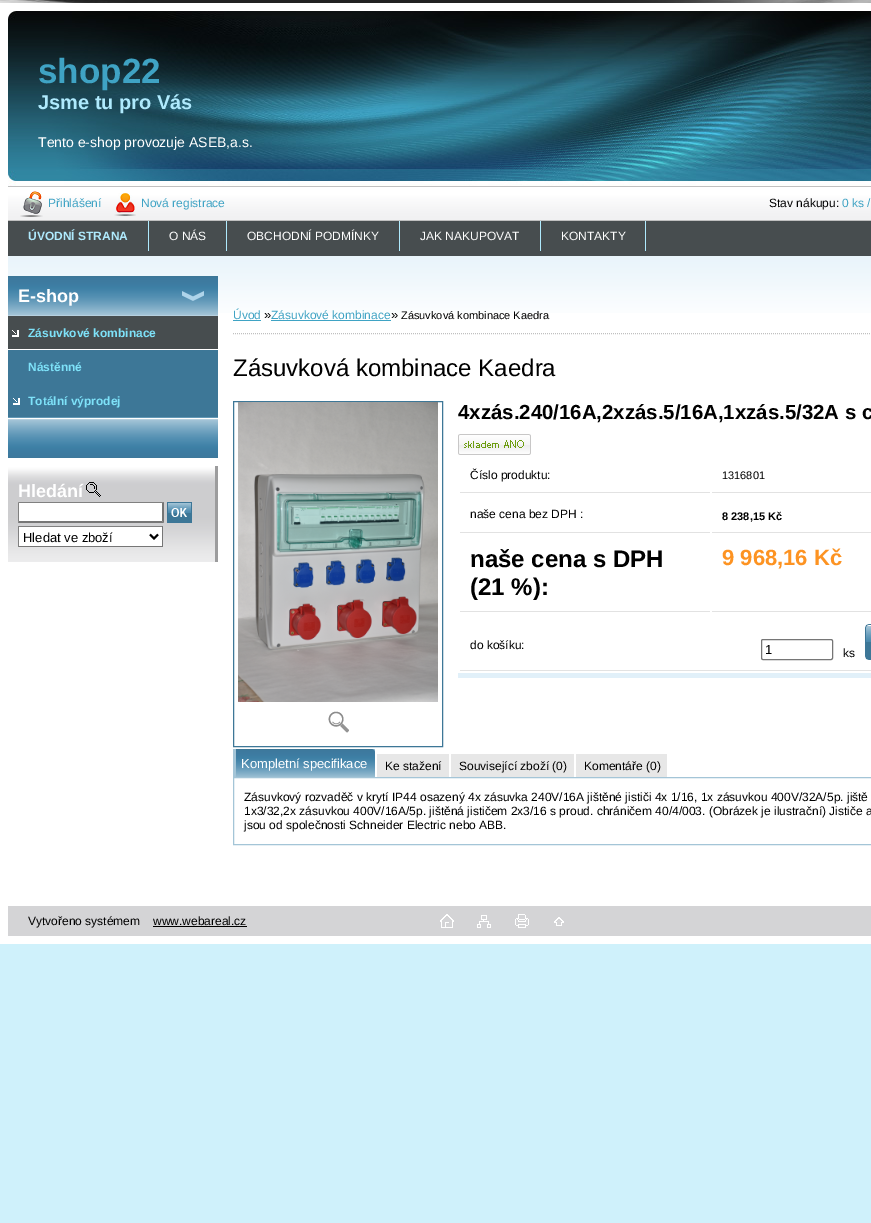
%!PS-Adobe-3.0
%%BoundingBox: 0 0 871 1223
%%LanguageLevel: 3
%%Pages: 1
%%EndComments
%%BeginProlog
/setink { dup -16 bitshift 255 div exch dup -8 bitshift 255 and 255 div exch 255 and 255 div setrgbcolor } def
/usefont { [ exch dup neg 0 0 3 -1 roll 0 0 ] selectfont } def
/rrect { 5 dict begin { /r /h /w /y /x } { exch def } forall
  x r add y moveto x w add y 2 copy h add r arct x w add y h add x 1 index r arct
  x y h add x y r arct x y 2 copy exch w add exch r arct closepath end } def
/drawimage { 5 dict begin { /h /w /y /x /name } { exch def } forall
  gsave x y translate w h scale
  w h 8 [w 0 0 h 0 0] name (r) file false 3 colorimage grestore end } def
%%EndProlog
%%BeginSetup
<< /PageSize [871 1223] >> setpagedevice
%%EndSetup
%%Page: 1 1
0 1223 translate 1 -1 scale
4 setmiterlimit
16#CFF1FB setink
0 0 871 1223 rectfill
(img1.raw) 0 0 871 3 drawimage
16#FFFFFF setink
0 3 871 941 rectfill
(img2.raw) 8 11 863 175 drawimage
/LiberationSans-Bold 35 usefont
16#3FA3C4 setink
38 83 moveto (shop22) show
/LiberationSans-Bold 20 usefont
16#AFEAFD setink
38 109 moveto (Jsme tu pro Vás) show
/LiberationSans-Regular 14 usefont
16#FFFFFF setink
38 147 moveto (Tento e-shop provozuje ASEB,a.s.) show
16#C0C0C0 setink
8 186 863 35 rectfill
(img3.raw) 8 187 863 33 drawimage
(img4.raw) 20 191 23 26 drawimage
/LiberationSans-Regular 12 usefont
16#3FA3C4 setink
48 207 moveto (Přihlášení) show
(img5.raw) 114 193 22 23 drawimage
141 207 moveto (Nová registrace) show
16#000000 setink
769 207 moveto (Stav nákupu:) show
16#3FA3C4 setink
842 207 moveto (0 ks /) show
16#474D4F setink
8 221 863 35 rectfill
16#AFEAFD setink
148 221 1 30 rectfill
/LiberationSans-Bold 12 usefont
28 240 moveto (ÚVODNÍ STRANA) show
226 221 1 30 rectfill
/LiberationSans-Regular 12 usefont
16#FFFFFF setink
169 240 moveto (O NÁS) show
16#AFEAFD setink
399 221 1 30 rectfill
16#FFFFFF setink
247 240 moveto (OBCHODNÍ PODMÍNKY) show
16#AFEAFD setink
540 221 1 30 rectfill
16#FFFFFF setink
420 240 moveto (JAK NAKUPOVAT) show
16#AFEAFD setink
645 221 1 30 rectfill
16#FFFFFF setink
561 240 moveto (KONTAKTY) show
(img6.raw) 8 256 863 57 drawimage
(img7.raw) 8 276 210 40 drawimage
/LiberationSans-Bold 18 usefont
18 302 moveto (E-shop) show
(img8.raw) 8 316 210 33 drawimage
/LiberationSans-Bold 12 usefont
16#7EE2F9 setink
28 337 moveto (Zásuvkové kombinace) show
16#3D7797 setink
8 350 210 34 rectfill
16#7EE2F9 setink
28 371 moveto (Nástěnné) show
(img9.raw) 8 384 210 34 drawimage
28 405 moveto (Totální výprodej) show
(img10.raw) 8 419 210 39 drawimage
(img11.raw) 8 466 210 96 drawimage
/LiberationSans-Bold 18 usefont
16#FFFFFF setink
18 497 moveto (Hledání) show
(img12.raw) 86 482 15 15 drawimage
18 502 146 21 rectfill
16#808080 setink
18 502 moveto 164 502 lineto 162 503 lineto 19 503 lineto closepath fill
16#767676 setink
164 502 moveto 164 523 lineto 162 521 lineto 162 503 lineto closepath fill
164 523 moveto 18 523 lineto 19 521 lineto 162 521 lineto closepath fill
16#808080 setink
18 523 moveto 18 502 lineto 19 503 lineto 19 521 lineto closepath fill
(img13.raw) 167 502 25 21 drawimage
[
    [19 527 143 19 16#FFFFFF]
    [18 526 145 1 16#808080]
    [162 526 1 21 16#767676]
    [18 546 145 1 16#767676]
    [18 526 1 21 16#808080]
] { aload pop setink rectfill } forall
16#000000 setink
2 setlinewidth
150 534.5 moveto 154 538.5 lineto 158 534.5 lineto stroke
/LiberationSans-Regular 13 usefont
23 542 moveto (Hledat ve zboží) show
16#C0C0C0 setink
1 setlinewidth
[1 1] 0 setdash
233 333.5 moveto 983 333.5 lineto stroke
/LiberationSans-Regular 12 usefont
16#3FA3C4 setink
233 319 moveto (Úvod) show
233 320 28 1 rectfill
/LiberationSans-Regular 13 usefont
16#000000 setink
264 319 moveto (») show
/LiberationSans-Regular 12 usefont
16#3FA3C4 setink
271 319 moveto (Zásuvkové kombinace) show
271 320 120 1 rectfill
/LiberationSans-Regular 13 usefont
16#000000 setink
391 319 moveto (») show
/LiberationSans-Regular 11 usefont
401 319 moveto (Zásuvková kombinace Kaedra) show
/LiberationSans-Regular 24 usefont
233 376 moveto (Zásuvková kombinace Kaedra) show
16#3D7797 setink
[] 0 setdash
233.5 401.5 209 345 rectstroke
(img14.raw) 238 402 200 300 drawimage
(img15.raw) 328 711 21 22 drawimage
/LiberationSans-Bold 20.4 usefont
16#000000 setink
458 419 moveto (4xzás.240/16A,2xzás.5/16A,1xzás.5/32A s c) show
(img16.raw) 458 434 73 21 drawimage
16#E1F0F9 setink
458 673 413 5 rectfill
16#E2E2E2 setink
460 492 250 1 rectfill
/LiberationSans-Regular 12 usefont
16#000000 setink
470 479 moveto (Číslo produktu:) show
16#E2E2E2 setink
712 492 159 1 rectfill
/LiberationSans-Regular 11 usefont
16#000000 setink
722 479 moveto (1316801) show
16#E2E2E2 setink
460 532 250 1 rectfill
/LiberationSans-Regular 12 usefont
16#000000 setink
470 518 moveto (naše cena bez DPH :) show
16#E2E2E2 setink
712 532 159 1 rectfill
/LiberationSans-Bold 11 usefont
16#000000 setink
722 520 moveto (8 238,15 Kč) show
16#E2E2E2 setink
460 611 250 1 rectfill
/LiberationSans-Bold 24 usefont
16#000000 setink
470 567 moveto (naše cena s DPH) show
470 595 moveto (\(21 %\):) show
16#E2E2E2 setink
712 611 159 1 rectfill
/LiberationSans-Bold 22 usefont
16#FD9322 setink
722 565 moveto (9 968,16 Kč) show
16#E2E2E2 setink
460 670 411 1 rectfill
/LiberationSans-Regular 12 usefont
16#000000 setink
470 649 moveto (do košíku:) show
16#767676 setink
761.5 639.5 71 20 1.5 rrect stroke
/LiberationSans-Regular 13 usefont
16#000000 setink
765 654 moveto (1) show
/LiberationSans-Regular 12 usefont
843 657 moveto (ks) show
(img17.raw) 865 624 6 36 drawimage
16#A4C5D7 setink
233 749 142 28 rectfill
(img18.raw) 236 749 139 28 drawimage
/LiberationSans-Regular 13 usefont
16#FFFFFF setink
241 768 moveto (Kompletní specifikace) show
16#E7E7E7 setink
377 754 72 23 rectfill
/LiberationSans-Regular 12 usefont
16#000000 setink
385 770 moveto (Ke stažení) show
16#E7E7E7 setink
451 754 123 23 rectfill
16#000000 setink
459 770 moveto (Související zboží \(0\)) show
16#E7E7E7 setink
576 754 91 23 rectfill
16#000000 setink
584 770 moveto (Komentáře \(0\)) show
16#A4C5D7 setink
233.5 777.5 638 67 rectstroke
16#000000 setink
[
    [(Zásuvkový rozvaděč v krytí IP44 osazený 4x zásuvka 240V/16A jištěné jističi 4x 1/16, 1x zásuvkou 400V/32A/5p. jiště) 244 801]
    [(1x3/32,2x zásuvkou 400V/16A/5p. jištěná jističem 2x3/16 s proud. chráničem 40/4/003. \(Obrázek je ilustrační\) Jističe a) 244 815]
    [(jsou od společnosti Schneider Electric nebo ABB.) 244 829]
] { aload pop moveto show } forall
16#D4D4D6 setink
8 906 863 30 rectfill
16#000000 setink
28 925 moveto (Vytvořeno systémem) show
153 925 moveto (www.webareal.cz) show
153 926 94 1 rectfill
(img19.raw) 440 914 14 14 drawimage
(img20.raw) 477 915 14 13 drawimage
(img21.raw) 515 914 14 14 drawimage
(img22.raw) 554 917 10 9 drawimage
showpage
%%EOF
